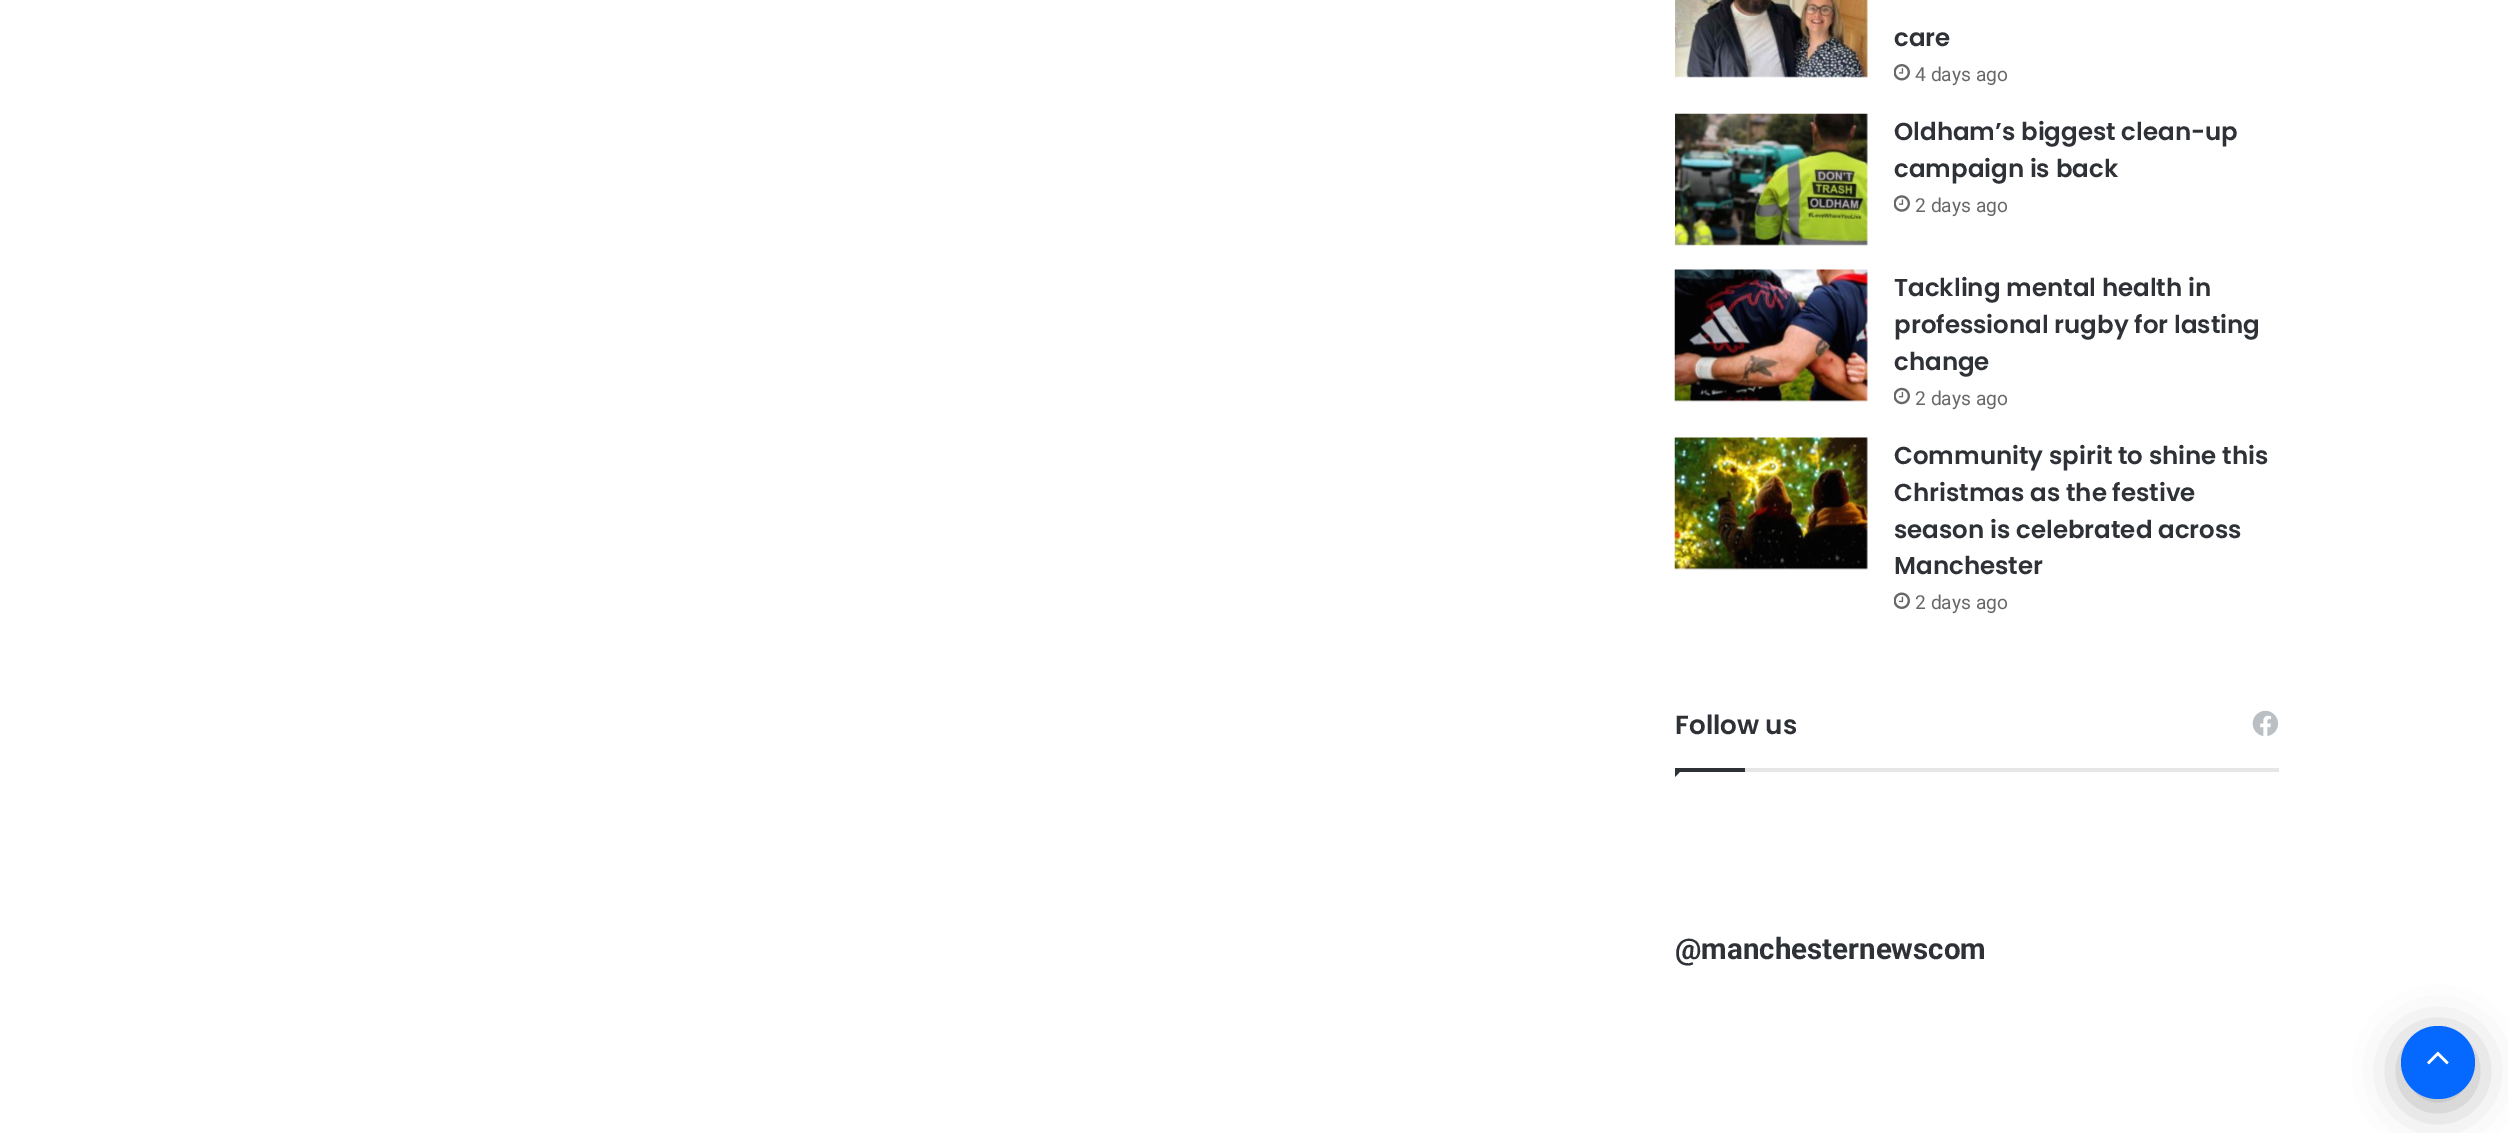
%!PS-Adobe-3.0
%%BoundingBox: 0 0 2508 1133
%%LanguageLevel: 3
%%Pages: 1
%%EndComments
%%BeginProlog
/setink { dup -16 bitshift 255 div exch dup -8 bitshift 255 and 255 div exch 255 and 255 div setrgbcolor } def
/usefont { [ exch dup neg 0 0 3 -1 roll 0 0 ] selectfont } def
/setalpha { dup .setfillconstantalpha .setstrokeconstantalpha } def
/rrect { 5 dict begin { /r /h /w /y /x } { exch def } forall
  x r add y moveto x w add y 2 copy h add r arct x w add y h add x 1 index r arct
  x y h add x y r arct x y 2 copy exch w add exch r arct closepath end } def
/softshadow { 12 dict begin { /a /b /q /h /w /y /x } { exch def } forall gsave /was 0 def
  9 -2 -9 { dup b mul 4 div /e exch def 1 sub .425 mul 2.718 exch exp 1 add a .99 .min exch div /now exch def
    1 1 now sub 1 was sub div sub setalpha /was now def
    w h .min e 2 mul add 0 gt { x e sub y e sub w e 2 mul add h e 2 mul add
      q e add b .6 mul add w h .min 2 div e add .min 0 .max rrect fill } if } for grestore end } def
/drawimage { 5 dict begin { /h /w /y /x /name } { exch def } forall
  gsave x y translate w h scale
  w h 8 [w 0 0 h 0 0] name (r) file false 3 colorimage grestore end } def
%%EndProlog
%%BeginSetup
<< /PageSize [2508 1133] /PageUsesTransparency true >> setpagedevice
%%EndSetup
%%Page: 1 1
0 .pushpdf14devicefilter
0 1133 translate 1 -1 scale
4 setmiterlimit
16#FFFFFF setink
0 0 2508 1133 rectfill
(img1.raw) 1675 0 193 78 drawimage
/Poppins-SemiBold 24.5 usefont
16#2E3136 setink
1894 46 moveto (care) show
(img2.raw) 1894 64 16 17 drawimage
/Roboto-Regular 19.25 usefont
16#686868 setink
1915 81 moveto (4 days ago) show
(img3.raw) 1675 113 193 133 drawimage
/Poppins-SemiBold 24.5 usefont
16#2E3136 setink
1894 140 moveto (Oldham’s biggest clean-up) show
1894 177 moveto (campaign is back) show
(img4.raw) 1894 195 16 17 drawimage
/Roboto-Regular 19.25 usefont
16#686868 setink
1915 212 moveto (2 days ago) show
(img5.raw) 1674 269 194 133 drawimage
/Poppins-SemiBold 24.5 usefont
16#2E3136 setink
[
    [(Tackling mental health in) 1894 296]
    [(professional rugby for lasting) 1894 333]
    [(change) 1894 370]
] { aload pop moveto show } forall
(img6.raw) 1894 387 16 18 drawimage
/Roboto-Regular 19.25 usefont
16#686868 setink
1915 405 moveto (2 days ago) show
(img7.raw) 1674 437 194 133 drawimage
/Poppins-SemiBold 24.5 usefont
16#2E3136 setink
[
    [(Community spirit to shine this) 1894 464]
    [(Christmas as the festive) 1894 501]
    [(season is celebrated across) 1894 538]
    [(Manchester) 1894 574]
] { aload pop moveto show } forall
(img8.raw) 1894 592 16 17 drawimage
/Roboto-Regular 19.25 usefont
16#686868 setink
1915 609 moveto (2 days ago) show
16#E6E6E6 setink
1745 768 534 4 rectfill
/Poppins-SemiBold 26.25 usefont
16#2E3136 setink
1675 734 moveto (Follow us) show
(img9.raw) 2252 710 27 26 drawimage
1675 768 moveto 1683.5 768 lineto 1675 777 lineto closepath fill
1675 768 70 4 rectfill
/Roboto-Bold 29.5 usefont
1675 959 moveto (@manchesternewscom) show
16#000000 setink
2401 1034 74 74 37 22 0.3 softshadow
16#0669FF setink
2401 1026 74 73 36.5 rrect fill
(img10.raw) 2427 1051 22 14 drawimage
.poppdf14devicefilter showpage
%%EOF
